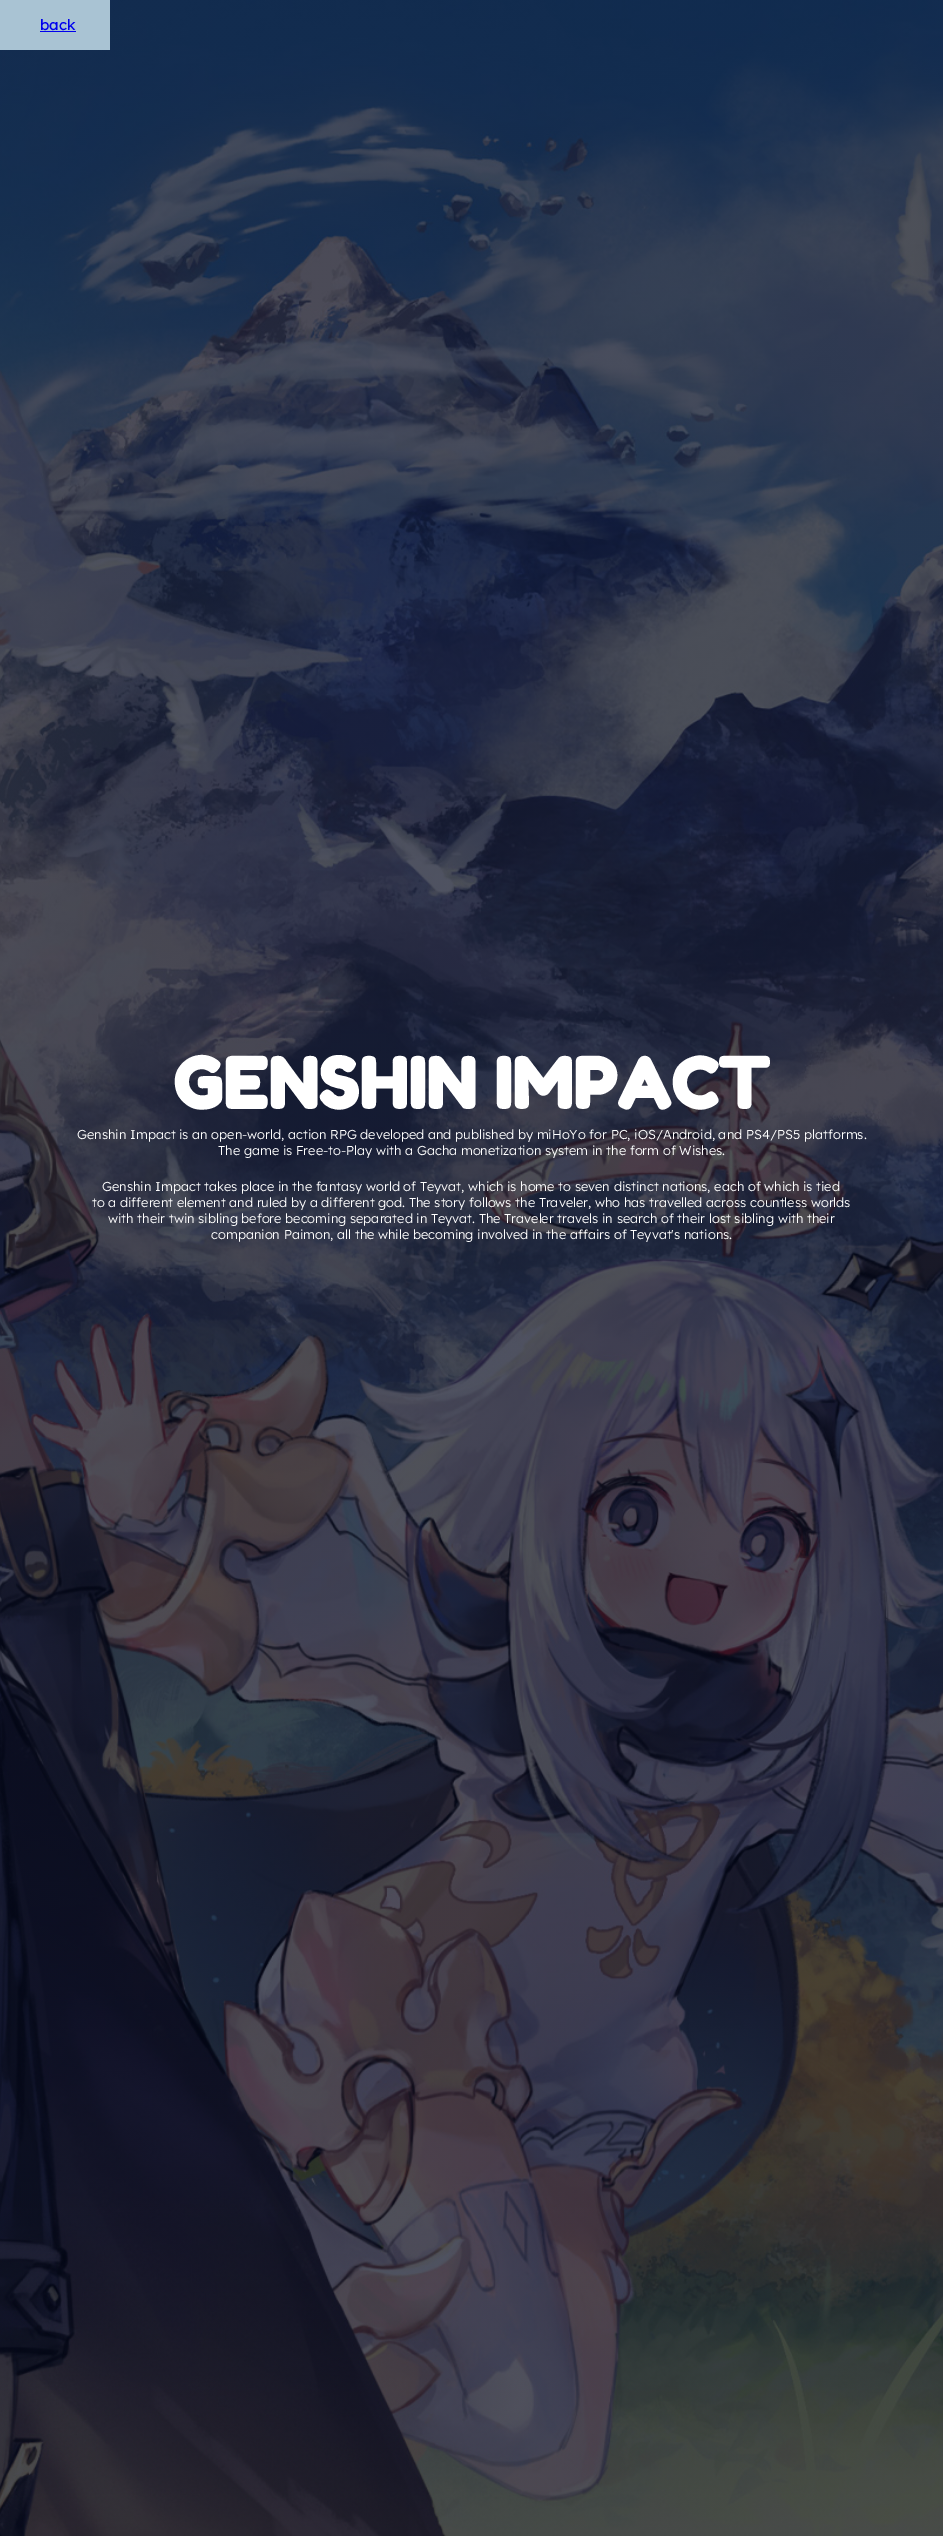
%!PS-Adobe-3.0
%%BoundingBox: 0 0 943 2536
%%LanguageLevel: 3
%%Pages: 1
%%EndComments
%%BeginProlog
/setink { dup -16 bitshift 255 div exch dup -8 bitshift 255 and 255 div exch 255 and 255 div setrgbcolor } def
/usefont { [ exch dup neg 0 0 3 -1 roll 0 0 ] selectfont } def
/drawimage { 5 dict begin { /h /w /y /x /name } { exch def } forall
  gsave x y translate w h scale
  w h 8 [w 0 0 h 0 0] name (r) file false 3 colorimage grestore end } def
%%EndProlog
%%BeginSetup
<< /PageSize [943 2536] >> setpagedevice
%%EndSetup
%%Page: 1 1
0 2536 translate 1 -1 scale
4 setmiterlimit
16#FFFFFF setink
0 0 943 2536 rectfill
(img1.raw) 0 0 943 2536 drawimage
16#A9C3D3 setink
0 0 110 50 rectfill
/Lexend-Regular 15 usefont
16#0000EE setink
40 30 moveto (back) show
40 31 36 1 rectfill
/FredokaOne-Bold 70 usefont
16#FFFFFF setink
173 1109 moveto (GENSHIN IMPACT) show
/Lexend-Light 13 usefont
[
    [(Genshin Impact is an open-world, action RPG developed and published by miHoYo for PC, iOS/Android, and PS4/PS5 platforms.) 77 1139]
    [(The game is Free-to-Play with a Gacha monetization system in the form of Wishes.) 218 1155]
    [(Genshin Impact takes place in the fantasy world of Teyvat, which is home to seven distinct nations, each of which is tied) 102 1191]
    [(to a different element and ruled by a different god. The story follows the Traveler, who has travelled across countless worlds) 92 1207]
    [(with their twin sibling before becoming separated in Teyvat. The Traveler travels in search of their lost sibling with their) 108 1223]
    [(companion Paimon, all the while becoming involved in the affairs of Teyvat's nations.) 211 1239]
] { aload pop moveto show } forall
showpage
%%EOF
